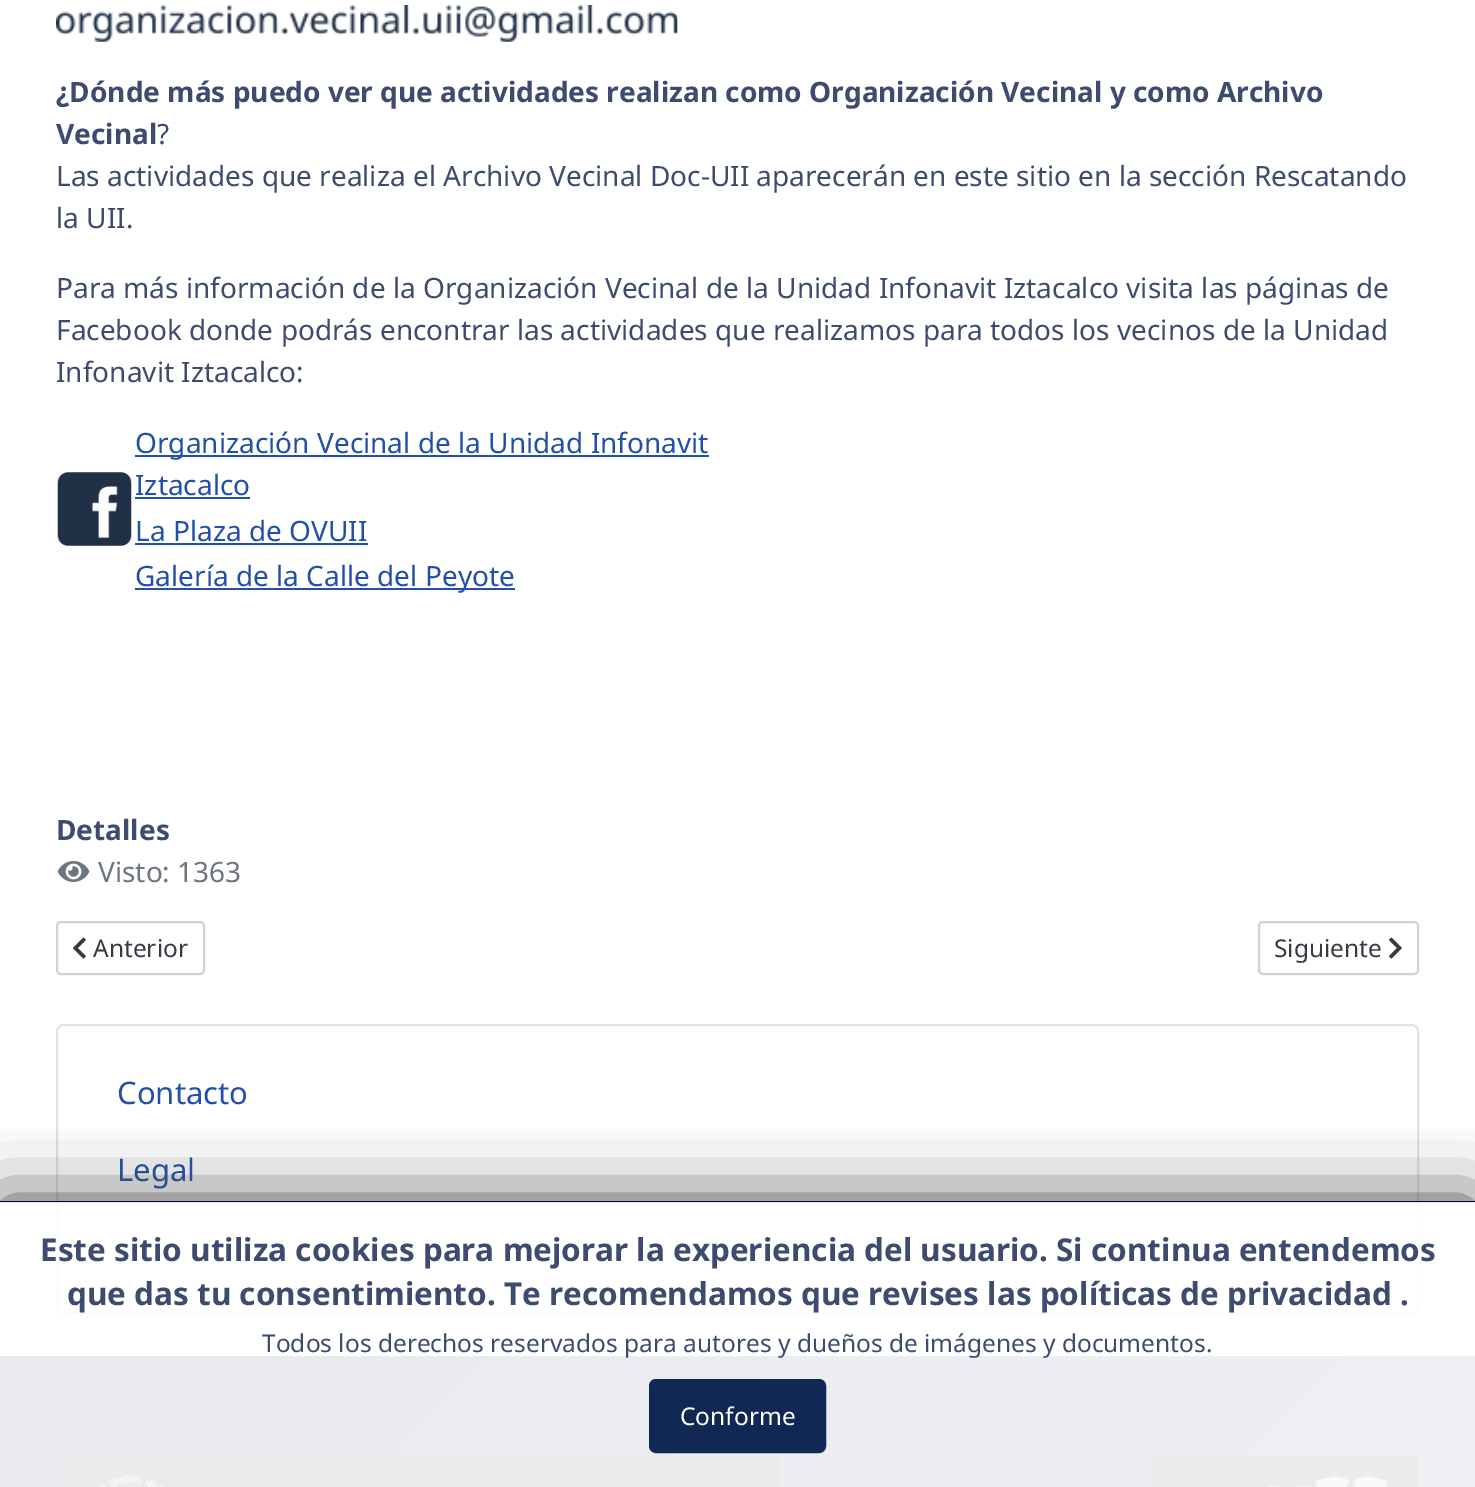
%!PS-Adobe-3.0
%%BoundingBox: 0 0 1475 1487
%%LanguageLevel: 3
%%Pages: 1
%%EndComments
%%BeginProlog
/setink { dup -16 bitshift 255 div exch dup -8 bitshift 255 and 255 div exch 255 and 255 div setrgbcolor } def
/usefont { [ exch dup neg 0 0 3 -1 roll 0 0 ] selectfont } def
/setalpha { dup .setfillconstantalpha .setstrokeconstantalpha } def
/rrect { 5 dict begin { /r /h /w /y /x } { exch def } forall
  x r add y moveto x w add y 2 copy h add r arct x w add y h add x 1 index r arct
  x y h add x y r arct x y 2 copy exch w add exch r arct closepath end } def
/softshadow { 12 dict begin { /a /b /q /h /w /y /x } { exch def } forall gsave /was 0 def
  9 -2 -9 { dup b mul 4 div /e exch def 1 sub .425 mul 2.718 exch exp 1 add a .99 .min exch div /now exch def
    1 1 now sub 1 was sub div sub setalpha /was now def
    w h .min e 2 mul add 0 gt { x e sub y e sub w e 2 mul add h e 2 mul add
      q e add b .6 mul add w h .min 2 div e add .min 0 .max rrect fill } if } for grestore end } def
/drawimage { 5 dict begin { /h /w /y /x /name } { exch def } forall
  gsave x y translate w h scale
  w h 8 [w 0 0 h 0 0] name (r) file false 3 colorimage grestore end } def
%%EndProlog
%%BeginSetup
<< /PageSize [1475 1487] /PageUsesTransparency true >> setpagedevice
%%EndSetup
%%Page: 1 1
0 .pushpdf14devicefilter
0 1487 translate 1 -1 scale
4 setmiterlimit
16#FFFFFF setink
0 0 1475 1487 rectfill
(img1.raw) 56 5 622 37 drawimage
/NotoSans-Bold 28 usefont
16#3D4B6E setink
56 102 moveto (¿Dónde más puedo ver que actividades realizan como Organización Vecinal y como Archivo) show
56 144 moveto (Vecinal) show
/NotoSans-Regular 28 usefont
[
    [(?) 157 144]
    [(Las actividades que realiza el Archivo Vecinal Doc-UII aparecerán en este sitio en la sección Rescatando) 56 186]
    [(la UII.) 56 228]
    [(Para más información de la Organización Vecinal de la Unidad Infonavit Iztacalco visita las páginas de) 56 298]
    [(Facebook donde podrás encontrar las actividades que realizamos para todos los vecinos de la Unidad) 56 340]
    [(Infonavit Iztacalco:) 56 382]
] { aload pop moveto show } forall
16#224FAA setink
135 455 574 2 rectfill
135 453 moveto (Organización Vecinal de la Unidad Infonavit) show
135 495 moveto (Iztacalco) show
135 497 115 2 rectfill
(img2.raw) 57 472 75 74 drawimage
135 541 moveto (La Plaza de OVUII) show
135 543 233 2 rectfill
135 588 380 2 rectfill
135 586 moveto (Galería de la Calle del Peyote) show
/NotoSans-Bold 28 usefont
16#3D4B6E setink
56 840 moveto (Detalles) show
(img3.raw) 57 861 33 21 drawimage
/NotoSans-Regular 28 usefont
16#6D757E setink
98 882 moveto (Visto: 1363) show
16#CED4DA setink
2 setlinewidth
57 922 147 52 4 rrect stroke
(img4.raw) 73 937 13 22 drawimage
/NotoSans-Regular 24.5 usefont
16#353B41 setink
93 957 moveto (Anterior) show
16#CED4DA setink
1259 922 159 52 4 rrect stroke
16#353B41 setink
1274 957 moveto (Siguiente) show
(img5.raw) 1389 937 13 22 drawimage
16#DFE3E7 setink
57 1025 1361 288 6 rrect stroke
/NotoSans-Regular 31 usefont
16#224FAA setink
117 1104 moveto (Contacto) show
117 1181 moveto (Legal) show
gsave 0 1356 moveto 1475 1356 lineto 1475 1487 lineto 0 1487 lineto closepath clip newpath
<< /ShadingType 2 /ColorSpace /DeviceRGB /Coords [235 1121 1240 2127] /Extend [true true] /Function << /FunctionType 2 /Domain [0 1] /C0 [0.086 0.157 0.329] /C1 [0.353 0.431 0.631] /N 1 >> >> shfill grestore
(img6.raw) 57 1455 724 32 drawimage
(img7.raw) 1153 1455 265 32 drawimage
gsave
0 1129 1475 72 rectclip
16#444444 setink
0 1201 1475 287 0 35 1 softshadow
grestore
16#010156 setink
0 1201 1475 2 rectfill
0.9 setalpha
16#FFFFFF setink
0 1202 1475 285 rectfill
/NotoSans-Bold 31.5 usefont
1 setalpha
16#3D4B6E setink
40 1261 moveto (Este sitio utiliza cookies para mejorar la experiencia del usuario. Si continua entendemos) show
67 1305 moveto (que das tu consentimiento. Te recomendamos que revises las políticas de privacidad .) show
/NotoSans-Regular 24.5 usefont
262 1352 moveto (Todos los derechos reservados para autores y dueños de imágenes y documentos.) show
16#112855 setink
650 1380 175 72 6 rrect gsave fill grestore
stroke
16#FFFFFF setink
680 1425 moveto (Conforme) show
.poppdf14devicefilter showpage
%%EOF
